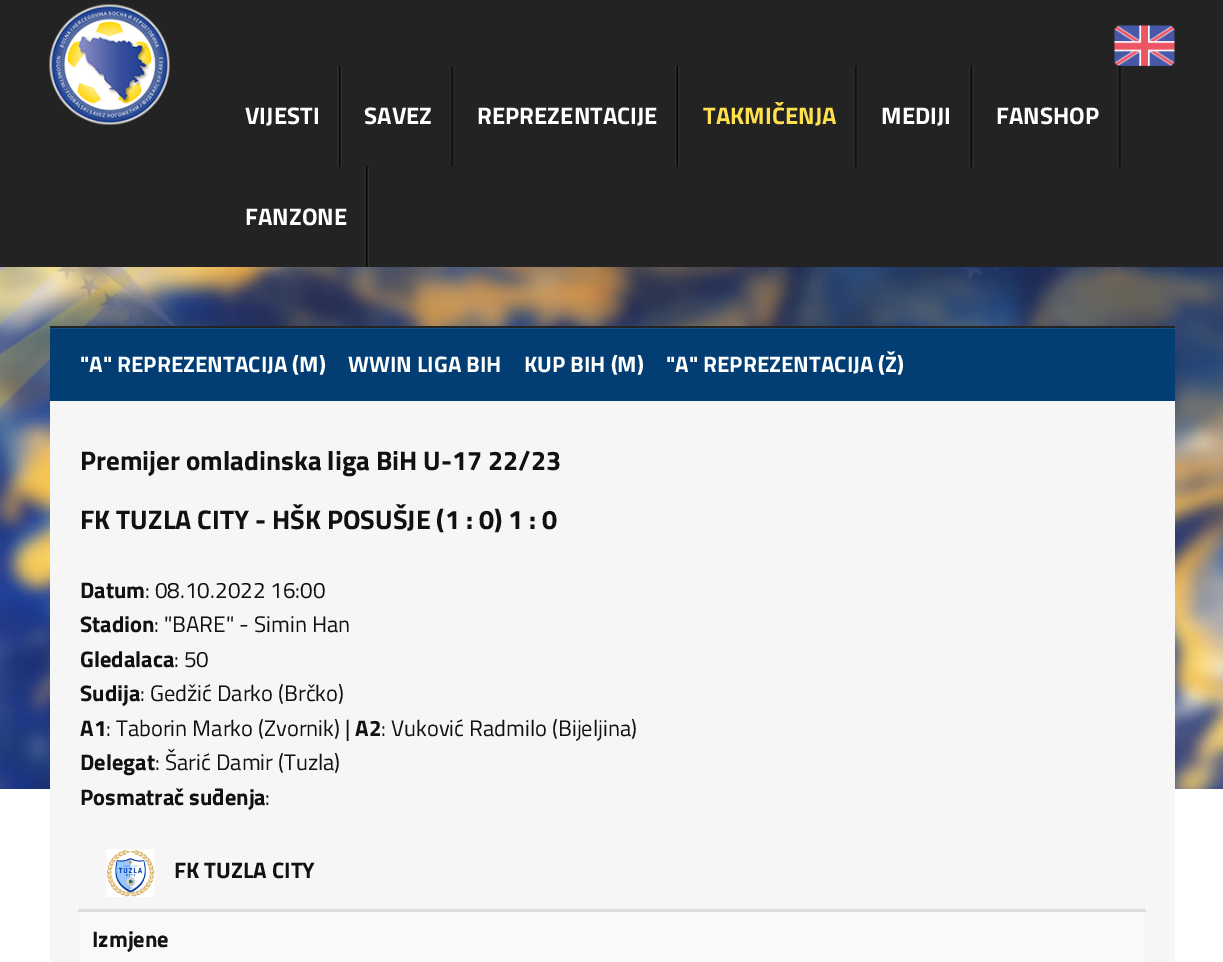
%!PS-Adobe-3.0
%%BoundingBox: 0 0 1223 962
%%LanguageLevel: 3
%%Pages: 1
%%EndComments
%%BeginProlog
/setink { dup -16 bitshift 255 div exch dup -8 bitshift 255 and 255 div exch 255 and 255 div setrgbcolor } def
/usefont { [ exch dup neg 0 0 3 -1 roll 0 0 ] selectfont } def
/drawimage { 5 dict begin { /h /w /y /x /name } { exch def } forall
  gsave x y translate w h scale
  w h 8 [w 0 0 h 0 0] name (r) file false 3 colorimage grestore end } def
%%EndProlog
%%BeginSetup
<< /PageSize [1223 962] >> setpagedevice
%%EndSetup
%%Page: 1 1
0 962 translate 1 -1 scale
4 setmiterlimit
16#FFFFFF setink
0 0 1223 962 rectfill
16#232323 setink
0 0 1223 267 rectfill
(img1.raw) 49 4 121 121 drawimage
(img2.raw) 1114 25 61 41 drawimage
(img3.raw) 337 65 5 102 drawimage
/TitilliumWeb-Bold 24 usefont
16#FFFFFF setink
245 124 moveto (VIJESTI) show
(img4.raw) 450 65 5 102 drawimage
364 124 moveto (SAVEZ) show
(img5.raw) 675 65 5 102 drawimage
477 124 moveto (REPREZENTACIJE) show
(img6.raw) 853 65 5 102 drawimage
16#FFE14D setink
703 124 moveto (TAKMIČENJA) show
(img5.raw) 969 65 5 102 drawimage
16#FFFFFF setink
881 124 moveto (MEDIJI) show
(img7.raw) 1117 65 6 102 drawimage
996 124 moveto (FANSHOP) show
(img8.raw) 364 166 5 101 drawimage
245 225 moveto (FANZONE) show
(img9.raw) 0 267 1223 522 drawimage
[
    [50 329 1125 72 16#023E73]
    [50 328 1125 1 16#1B5181]
    [50 326 1125 2 16#232323]
] { aload pop setink rectfill } forall
/TitilliumWeb-Bold 22.5 usefont
16#FFFFFF setink
[
    [("A" REPREZENTACIJA \(M\)) 80 372]
    [(WWIN LIGA BIH) 348 372]
    [(KUP BIH \(M\)) 524 372]
    [("A" REPREZENTACIJA \(Ž\)) 666 372]
] { aload pop moveto show } forall
16#F6F6F6 setink
50 401 1125 561 rectfill
/TitilliumWeb-Bold 27 usefont
16#111111 setink
80 470 moveto (Premijer omladinska liga BiH U-17 22/23) show
80 529 moveto (FK TUZLA CITY - HŠK POSUŠJE \(1 : 0\) 1 : 0) show
/TitilliumWeb-Bold 22.5 usefont
80 598 moveto (Datum) show
/TitilliumWeb-Regular 22.5 usefont
145 598 moveto (: 08.10.2022 16:00) show
/TitilliumWeb-Bold 22.5 usefont
80 632 moveto (Stadion) show
/TitilliumWeb-Regular 22.5 usefont
154 632 moveto (: "BARE" - Simin Han) show
/TitilliumWeb-Bold 22.5 usefont
80 667 moveto (Gledalaca) show
/TitilliumWeb-Regular 22.5 usefont
174 667 moveto (: 50) show
/TitilliumWeb-Bold 22.5 usefont
80 701 moveto (Sudija) show
/TitilliumWeb-Regular 22.5 usefont
140 701 moveto (: Gedžić Darko \(Brčko\)) show
/TitilliumWeb-Bold 22.5 usefont
80 736 moveto (A1) show
/TitilliumWeb-Regular 22.5 usefont
106 736 moveto (: Taborin Marko \(Zvornik\) |) show
/TitilliumWeb-Bold 22.5 usefont
355 736 moveto (A2) show
/TitilliumWeb-Regular 22.5 usefont
381 736 moveto (: Vuković Radmilo \(Bijeljina\)) show
/TitilliumWeb-Bold 22.5 usefont
80 770 moveto (Delegat) show
/TitilliumWeb-Regular 22.5 usefont
155 770 moveto (: Šarić Damir \(Tuzla\)) show
/TitilliumWeb-Bold 22.5 usefont
80 805 moveto (Posmatrač suđenja) show
/TitilliumWeb-Regular 22.5 usefont
265 805 moveto (:) show
16#DDDDDD setink
78 909 1068 3 rectfill
(img10.raw) 106 849 49 48 drawimage
/TitilliumWeb-Bold 22.5 usefont
16#111111 setink
174 878 moveto (FK TUZLA CITY) show
16#F9F9F9 setink
80 912 1065 50 rectfill
16#111111 setink
92 947 moveto (Izmjene) show
showpage
%%EOF
